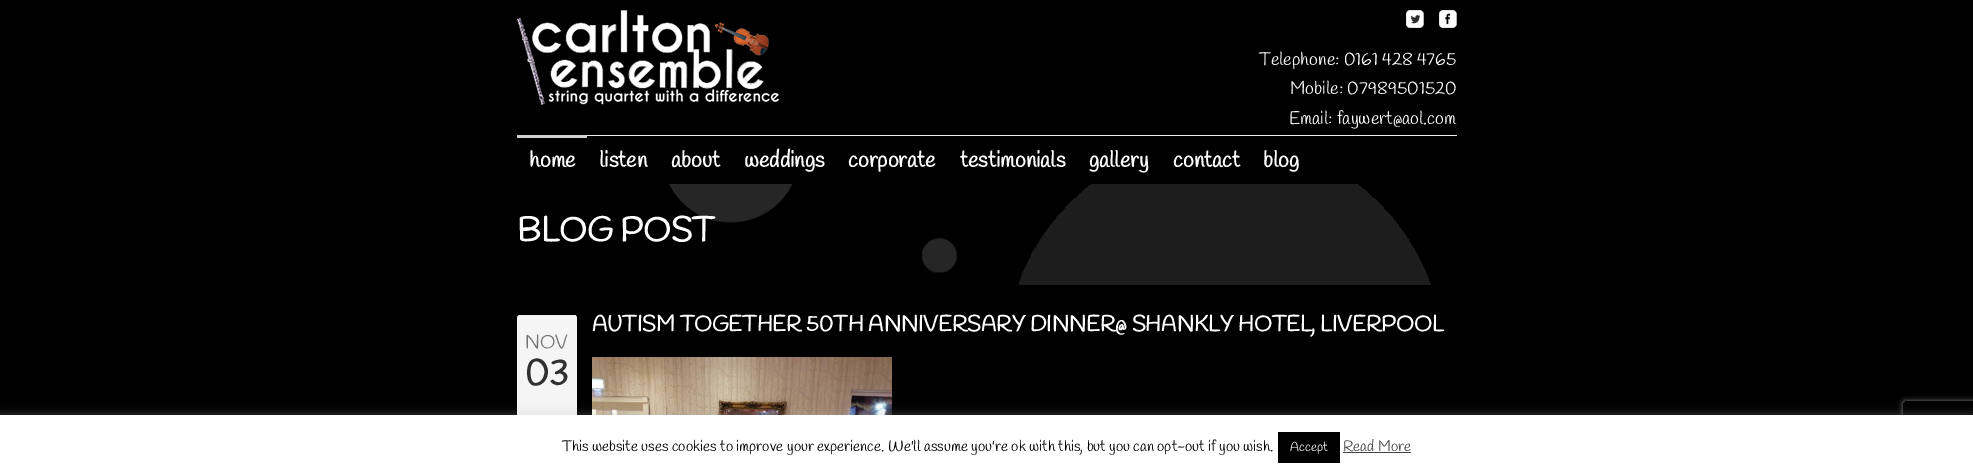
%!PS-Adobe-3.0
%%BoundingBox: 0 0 1973 475
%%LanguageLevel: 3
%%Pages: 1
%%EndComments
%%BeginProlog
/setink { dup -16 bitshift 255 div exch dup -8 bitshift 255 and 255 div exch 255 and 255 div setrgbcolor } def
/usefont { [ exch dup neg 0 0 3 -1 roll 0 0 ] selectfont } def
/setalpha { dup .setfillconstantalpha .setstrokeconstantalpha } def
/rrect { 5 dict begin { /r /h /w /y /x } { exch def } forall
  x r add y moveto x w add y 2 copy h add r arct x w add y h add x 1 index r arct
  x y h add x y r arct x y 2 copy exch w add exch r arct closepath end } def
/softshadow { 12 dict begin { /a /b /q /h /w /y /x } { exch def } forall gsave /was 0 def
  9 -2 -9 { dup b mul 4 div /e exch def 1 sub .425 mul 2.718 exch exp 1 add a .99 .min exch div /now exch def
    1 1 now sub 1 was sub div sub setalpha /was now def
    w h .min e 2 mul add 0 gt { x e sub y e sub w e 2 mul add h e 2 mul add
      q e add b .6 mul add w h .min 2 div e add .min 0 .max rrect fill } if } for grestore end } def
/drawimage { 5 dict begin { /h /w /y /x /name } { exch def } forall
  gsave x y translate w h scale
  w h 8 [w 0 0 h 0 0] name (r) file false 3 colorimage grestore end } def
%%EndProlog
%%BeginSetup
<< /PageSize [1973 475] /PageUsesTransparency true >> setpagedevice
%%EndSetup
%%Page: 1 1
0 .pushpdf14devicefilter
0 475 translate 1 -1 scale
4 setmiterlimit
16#000000 setink
0 0 1973 475 rectfill
(img1.raw) 517 10 262 95 drawimage
(img2.raw) 1406 10 18 18 drawimage
(img3.raw) 1439 10 18 18 drawimage
/Handlee-Regular 18 usefont
16#FFFFFF setink
[
    [(Telephone: 0161 428 4765) 1259 65]
    [(Mobile: 07989501520) 1290 94]
    [(Email: faywert@aol.com) 1289 124]
] { aload pop moveto show } forall
16#ECECEC setink
587 135 870 1 rectfill
16#D1D1D1 setink
517 135 70 3 rectfill
/Handlee-Bold 22 usefont
16#FFFFFF setink
[
    [(home) 529 167]
    [(listen) 599 167]
    [(about) 671 167]
    [(weddings) 744 167]
    [(corporate) 848 167]
    [(testimonials) 960 167]
    [(gallery) 1089 167]
    [(contact) 1173 167]
    [(blog) 1263 167]
] { aload pop moveto show } forall
(img4.raw) 669 184 762 101 drawimage
/Handlee-Bold 34 usefont
517 241 moveto (BLOG POST) show
/Handlee-Bold 22 usefont
592 331 moveto (AUTISM TOGETHER 50TH ANNIVERSARY DINNER@ SHANKLY HOTEL, LIVERPOOL) show
(img5.raw) 592 357 300 58 drawimage
16#F5F5F5 setink
517 315 60 129 3 rrect fill
16#ECECEC setink
519 315 57 1 rectfill
/Handlee-Regular 19 usefont
16#727272 setink
525 348 moveto (NOV) show
/Handlee-Bold 37 usefont
16#303030 setink
525 385 moveto (03) show
16#ACABAB setink
0 414 1973 60 0 5 0.3 softshadow
gsave
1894 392 moveto 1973 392 lineto 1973 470 lineto 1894 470 lineto closepath 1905 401 moveto 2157 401 lineto 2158 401 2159 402 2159 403 curveto 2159 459 lineto 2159 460 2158 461 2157 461 curveto 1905 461 lineto 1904 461 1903 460 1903 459 curveto 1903 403 lineto 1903 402 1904 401 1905 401 curveto closepath eoclip newpath
16#808080 setink
1903 401 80 60 2 2.5 1 softshadow
grestore
16#FFFFFF setink
0 415 1973 60 rectfill
/Handlee-Regular 15 usefont
16#000000 setink
562 451 moveto (This website uses cookies to improve your experience. We'll assume you're ok with this, but you can opt-out if you wish.) show
1278 432 62 31 rectfill
/Handlee-Regular 13 usefont
16#FFFFFF setink
1290 451 moveto (Accept) show
/Handlee-Regular 15 usefont
16#444444 setink
1343 451 moveto (Read More) show
1343 452 68 1 rectfill
.poppdf14devicefilter showpage
%%EOF
